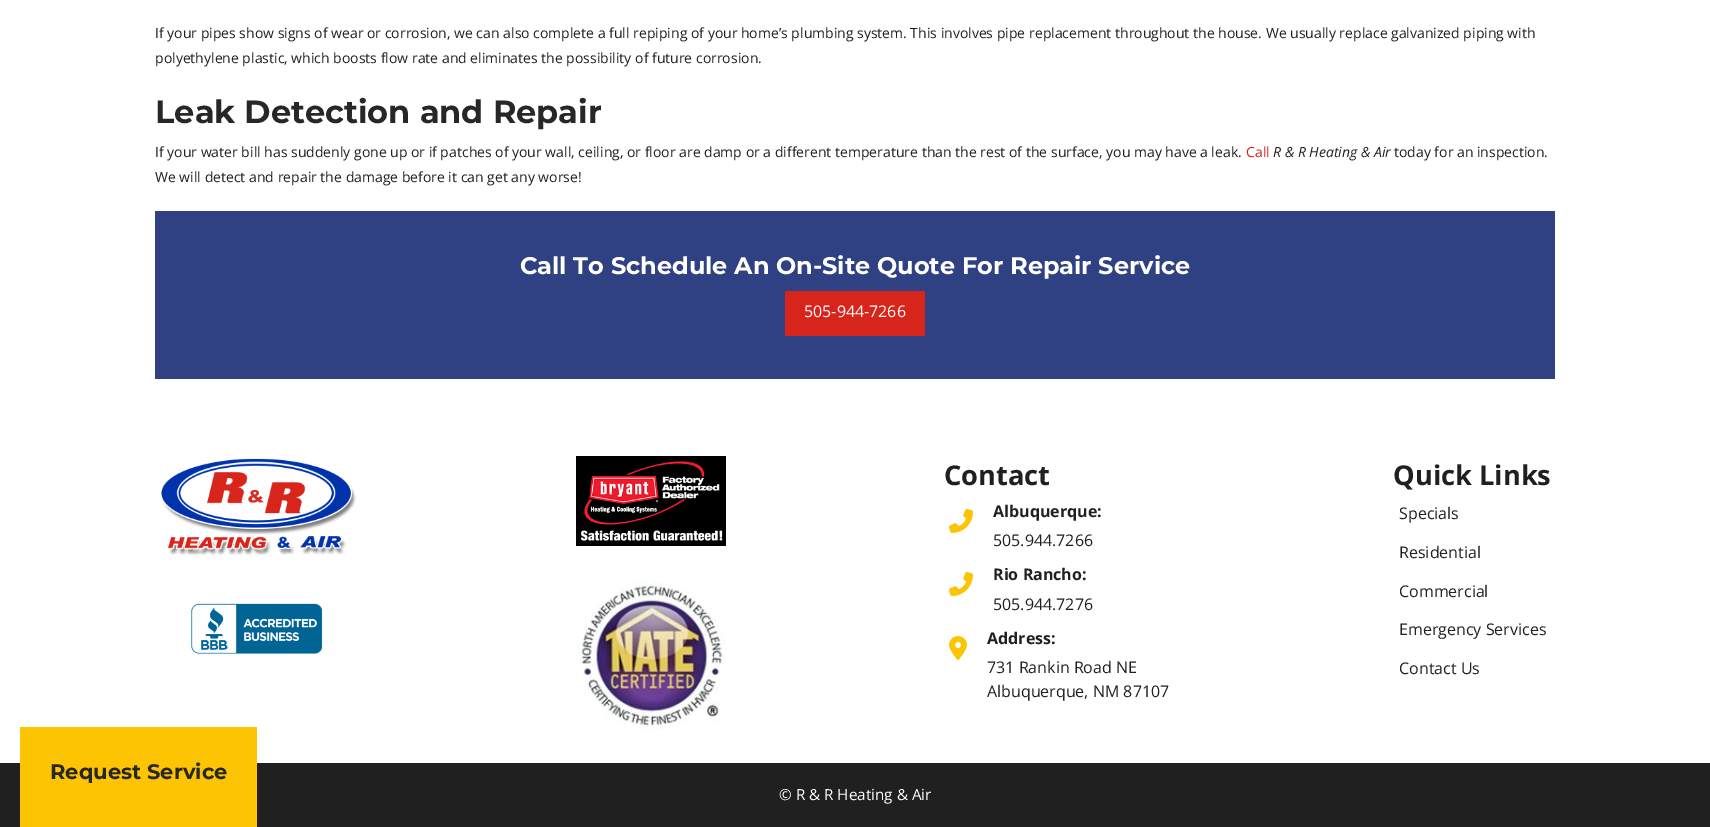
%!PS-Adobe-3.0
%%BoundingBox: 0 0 1710 827
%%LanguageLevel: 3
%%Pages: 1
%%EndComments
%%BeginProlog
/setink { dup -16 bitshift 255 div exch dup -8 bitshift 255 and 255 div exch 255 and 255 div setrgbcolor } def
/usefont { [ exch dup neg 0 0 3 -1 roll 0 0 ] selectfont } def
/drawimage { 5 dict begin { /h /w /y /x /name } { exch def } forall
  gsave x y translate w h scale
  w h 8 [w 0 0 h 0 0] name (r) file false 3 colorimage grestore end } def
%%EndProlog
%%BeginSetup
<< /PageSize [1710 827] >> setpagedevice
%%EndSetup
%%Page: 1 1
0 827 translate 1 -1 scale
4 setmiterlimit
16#FFFFFF setink
0 0 1710 827 rectfill
16#202020 setink
0 763 1710 64 rectfill
16#FCC403 setink
20 727 237 100 rectfill
/Montserrat-Bold 21 usefont
16#272727 setink
50 779 moveto (Request Service) show
/OpenSans-Regular 14 usefont
16#202020 setink
155 38 moveto (If your pipes show signs of wear or corrosion, we can also complete a full repiping of your home’s plumbing system. This involves pipe replacement throughout the house. We usually replace galvanized piping with) show
155 63 moveto (polyethylene plastic, which boosts flow rate and eliminates the possibility of future corrosion.) show
/Montserrat-Bold 32 usefont
16#272727 setink
155 123 moveto (Leak Detection and Repair) show
/OpenSans-Regular 14 usefont
16#202020 setink
155 157 moveto (If your water bill has suddenly gone up or if patches of your wall, ceiling, or floor are damp or a different temperature than the rest of the surface, you may have a leak.) show
16#D8251B setink
1246 157 moveto (Call) show
/OpenSans-Italic 14 usefont
16#202020 setink
1273 157 moveto (R & R Heating & Air) show
/OpenSans-Regular 14 usefont
1394 157 moveto (today for an inspection.) show
155 182 moveto (We will detect and repair the damage before it can get any worse!) show
16#2F4182 setink
155 211 1400 168 rectfill
/Montserrat-Bold 24 usefont
16#FFFFFF setink
520 274 moveto (Call To Schedule An On-Site Quote For Repair Service) show
16#D8251B setink
785 291 140 45 rectfill
/OpenSans-Regular 16 usefont
16#FFFFFF setink
804 317 moveto (505-944-7266) show
(img1.raw) 161 457 195 99 drawimage
(img2.raw) 191 603 132 51 drawimage
(img3.raw) 576 456 150 90 drawimage
(img4.raw) 576 581 150 150 drawimage
/OpenSans-Bold 27.25 usefont
16#202020 setink
944 485 moveto (Contact) show
(img5.raw) 949 509 24 24 drawimage
/OpenSans-Bold 16 usefont
993 517 moveto (Albuquerque:) show
/OpenSans-Regular 16 usefont
993 546 moveto (505.944.7266) show
(img5.raw) 949 572 24 24 drawimage
/OpenSans-Bold 16 usefont
993 580 moveto (Rio Rancho:) show
/OpenSans-Regular 16 usefont
993 610 moveto (505.944.7276) show
(img6.raw) 949 636 18 24 drawimage
/OpenSans-Bold 16 usefont
987 644 moveto (Address:) show
/OpenSans-Regular 16 usefont
987 673 moveto (731 Rankin Road NE) show
987 697 moveto (Albuquerque, NM 87107) show
/OpenSans-Bold 27.25 usefont
1393 485 moveto (Quick Links) show
/OpenSans-Regular 16 usefont
[
    [(Specials) 1399 519]
    [(Residential) 1399 558]
    [(Commercial) 1399 597]
    [(Emergency Services) 1399 635]
    [(Contact Us) 1399 674]
] { aload pop moveto show } forall
/OpenSans-Regular 15.25 usefont
16#FFFFFF setink
779 800 moveto (© R & R Heating & Air) show
showpage
%%EOF
